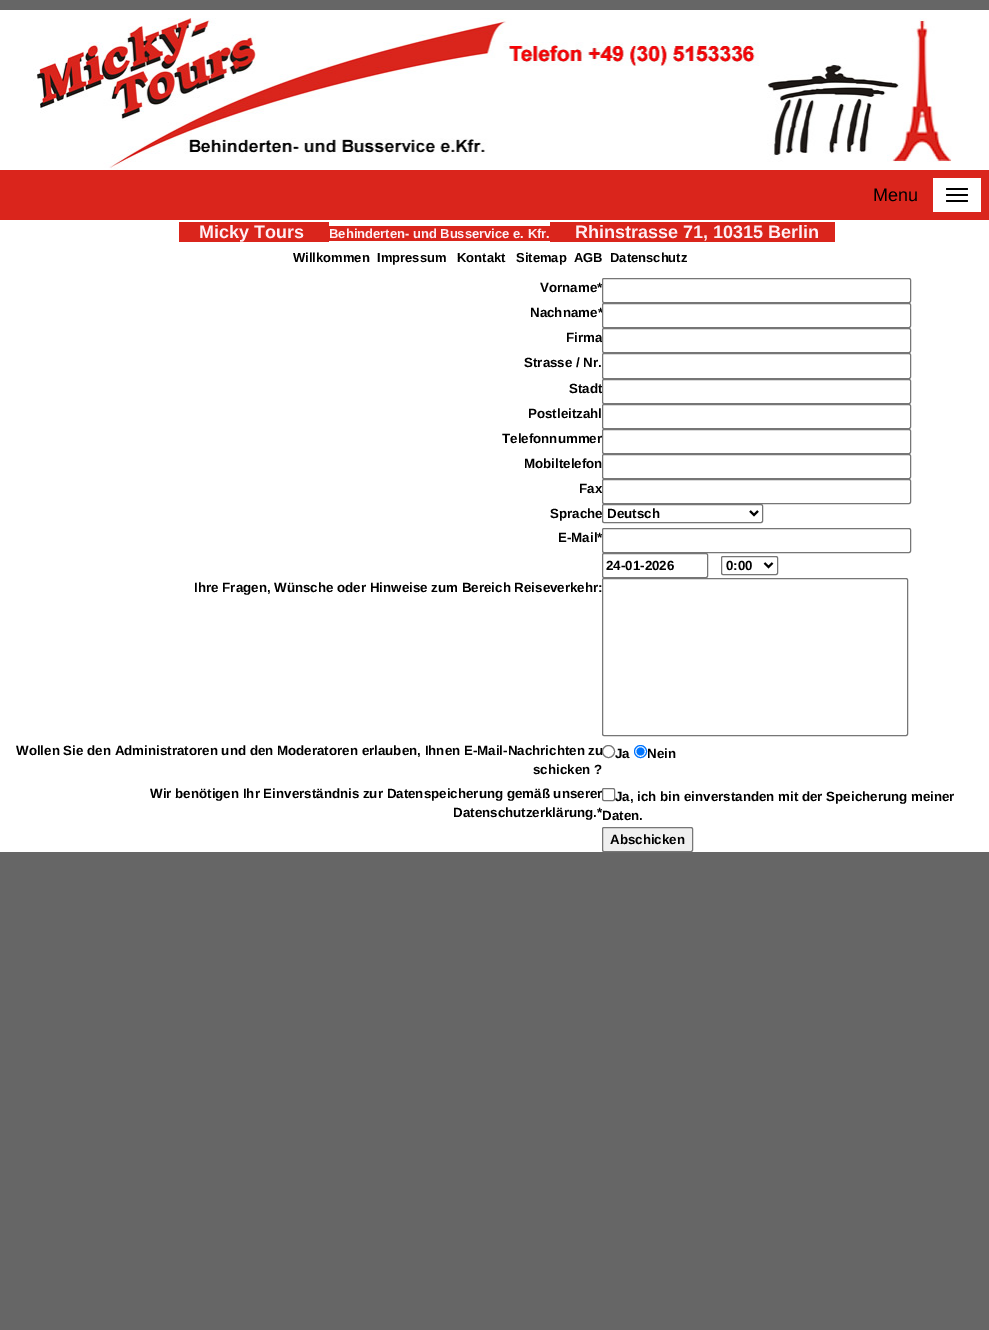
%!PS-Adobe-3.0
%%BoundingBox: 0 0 989 1330
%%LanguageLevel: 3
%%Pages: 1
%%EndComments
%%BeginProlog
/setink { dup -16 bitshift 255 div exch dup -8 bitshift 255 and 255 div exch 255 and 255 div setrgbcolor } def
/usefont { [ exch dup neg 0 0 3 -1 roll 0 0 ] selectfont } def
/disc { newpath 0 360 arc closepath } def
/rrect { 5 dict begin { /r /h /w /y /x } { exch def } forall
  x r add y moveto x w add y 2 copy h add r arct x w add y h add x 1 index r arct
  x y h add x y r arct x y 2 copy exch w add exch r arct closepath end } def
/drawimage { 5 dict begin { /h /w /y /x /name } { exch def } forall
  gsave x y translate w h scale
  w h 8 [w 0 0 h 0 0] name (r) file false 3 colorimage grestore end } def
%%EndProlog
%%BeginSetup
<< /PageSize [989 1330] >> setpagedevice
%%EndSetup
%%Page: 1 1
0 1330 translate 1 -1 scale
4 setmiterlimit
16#666666 setink
0 0 989 1330 rectfill
16#FFFFFF setink
0 10 989 842 rectfill
(img1.raw) 33 18 919 152 drawimage
16#DA251C setink
0 170 989 50 rectfill
/LiberationSans-Regular 18 usefont
16#000000 setink
873 201 moveto (Menu) show
16#FFFFFF setink
933 178 48 34 rectfill
16#000000 setink
946 188 22 2 1 rrect fill
946 194 22 2 1 rrect fill
946 200 22 2 1 rrect fill
16#DA251C setink
179 222 150 20 rectfill
/LiberationSans-Bold 18 usefont
16#FFF0F5 setink
199 238 moveto (Micky Tours) show
16#DA251C setink
329 226 221 15 rectfill
/LiberationSans-Bold 13 usefont
16#FFF0F5 setink
329 238 moveto (Behinderten- und Busservice e. Kfr.) show
16#DA251C setink
550 222 285 20 rectfill
/LiberationSans-Bold 18 usefont
16#FFF0F5 setink
575 238 moveto (Rhinstrasse 71, 10315 Berlin) show
/LiberationSans-Bold 13 usefont
16#000000 setink
[
    [(Willkommen) 293 262]
    [(Impressum) 377 262]
    [(Kontakt) 457 262]
    [(Sitemap) 516 262]
    [(AGB) 574 262]
    [(Datenschutz) 610 262]
] { aload pop moveto show } forall
/LiberationSans-Bold 13.35 usefont
540 292 moveto (Vorname*) show
16#FFFFFF setink
602.5 278.5 308 24 1.5 rrect gsave fill grestore
16#767676 setink
stroke
16#000000 setink
530 317 moveto (Nachname*) show
16#FFFFFF setink
602.5 303.5 308 24 1.5 rrect gsave fill grestore
16#767676 setink
stroke
16#000000 setink
566 342 moveto (Firma) show
16#FFFFFF setink
602.5 328.5 308 24 1.5 rrect gsave fill grestore
16#767676 setink
stroke
16#000000 setink
524 367 moveto (Strasse / Nr.) show
16#767676 setink
602.5 353.5 308 25 1.5 rrect stroke
16#000000 setink
569 393 moveto (Stadt) show
16#767676 setink
602.5 379.5 308 24 1.5 rrect stroke
16#000000 setink
528 418 moveto (Postleitzahl) show
16#767676 setink
602.5 404.5 308 24 1.5 rrect stroke
16#000000 setink
502 443 moveto (Telefonnummer) show
16#767676 setink
602.5 429.5 308 24 1.5 rrect stroke
16#000000 setink
524 468 moveto (Mobiltelefon) show
16#767676 setink
602.5 454.5 308 24 1.5 rrect stroke
16#000000 setink
579 493 moveto (Fax) show
16#767676 setink
602.5 479.5 308 24 1.5 rrect stroke
16#000000 setink
550 518 moveto (Sprache) show
16#767676 setink
602.5 504.5 160 18 1.5 rrect stroke
16#000000 setink
2 setlinewidth
750 511 moveto 754 515 lineto 758 511 lineto stroke
607 518 moveto (Deutsch) show
558 542 moveto (E-Mail*) show
16#FFFFFF setink
602.5 528.5 308 24 1.5 rrect gsave fill grestore
16#767676 setink
1 setlinewidth
stroke
602.5 553.5 105 24 1.5 rrect stroke
16#000000 setink
606 570 moveto (24-01-2026) show
16#767676 setink
721.5 556.5 56 18 1.5 rrect stroke
16#000000 setink
2 setlinewidth
764.5 563 moveto 768.5 567 lineto 772.5 563 lineto stroke
726 570 moveto (0:00) show
194 592 moveto (Ihre Fragen, Wünsche oder Hinweise zum Bereich Reiseverkehr:) show
16#767676 setink
1 setlinewidth
602.5 578.5 305 157 1.5 rrect stroke
16#000000 setink
16 755 moveto (Wollen Sie den Administratoren und den Moderatoren erlauben, Ihnen E-Mail-Nachrichten zu) show
533 774 moveto (schicken ?) show
16#767676 setink
608.5 751.5 6 disc stroke
16#000000 setink
615 758 moveto (Ja) show
16#0075FF setink
640.5 751.5 6 disc stroke
640.5 751.5 4 disc fill
16#000000 setink
[
    [(Nein) 647 758]
    [(Wir benötigen Ihr Einverständnis zur Datenspeicherung gemäß unserer) 150 798]
    [(Datenschutzerklärung.*) 453 817]
] { aload pop moveto show } forall
16#FFFFFF setink
602.5 788.5 12 12 1.5 rrect gsave fill grestore
16#767676 setink
stroke
16#000000 setink
615 801 moveto (Ja, ich bin einverstanden mit der Speicherung meiner) show
602 820 moveto (Daten.) show
16#EFEFEF setink
602.5 827.5 90 24 1.5 rrect gsave fill grestore
16#767676 setink
stroke
16#000000 setink
610 844 moveto (Abschicken) show
showpage
%%EOF
